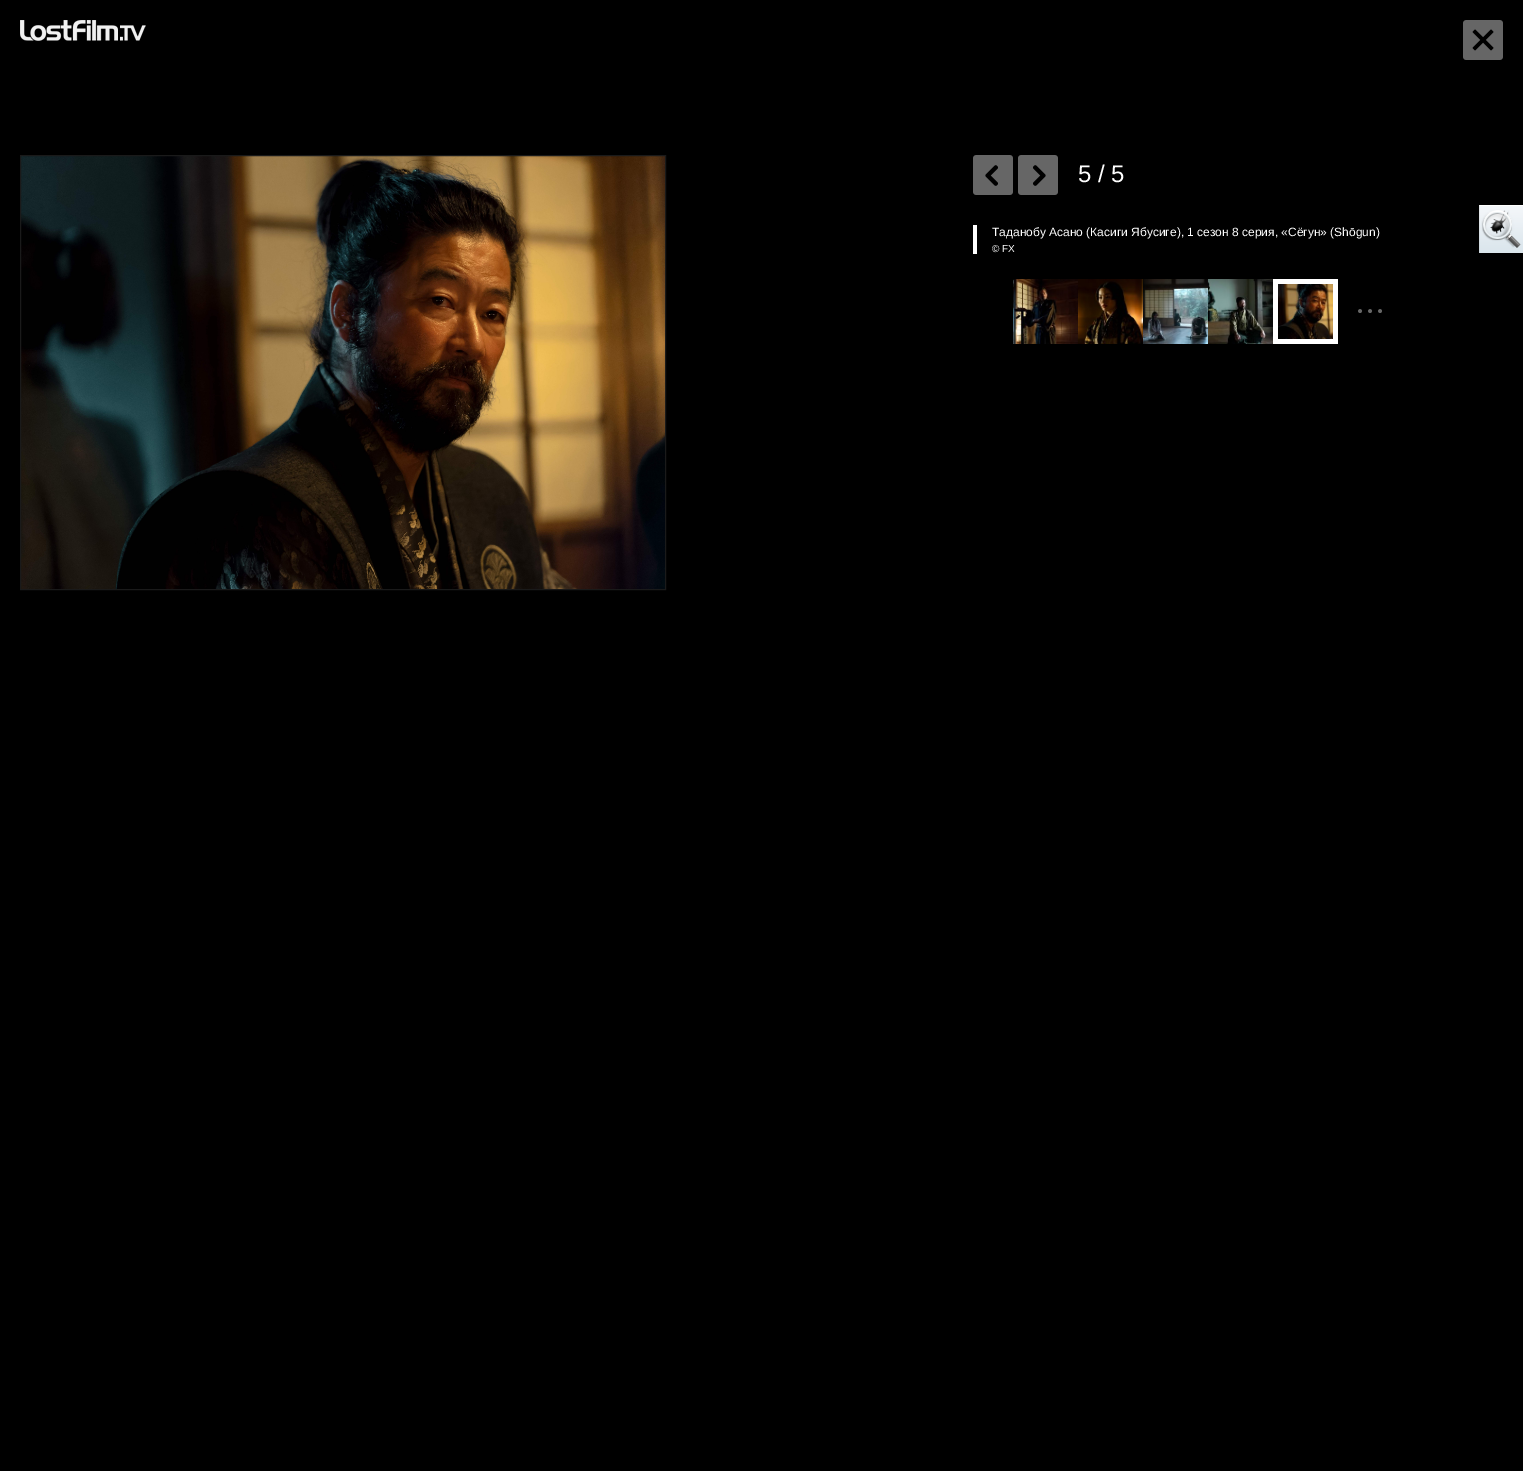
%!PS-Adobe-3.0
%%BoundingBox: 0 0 1523 1471
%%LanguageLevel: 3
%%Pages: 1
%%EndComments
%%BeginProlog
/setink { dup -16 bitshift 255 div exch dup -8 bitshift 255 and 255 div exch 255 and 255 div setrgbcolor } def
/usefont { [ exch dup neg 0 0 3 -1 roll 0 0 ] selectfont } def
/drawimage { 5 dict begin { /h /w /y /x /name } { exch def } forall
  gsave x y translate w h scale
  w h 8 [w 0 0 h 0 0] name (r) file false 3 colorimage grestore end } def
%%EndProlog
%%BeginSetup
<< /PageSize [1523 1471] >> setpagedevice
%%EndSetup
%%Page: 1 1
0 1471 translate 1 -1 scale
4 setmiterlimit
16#000000 setink
0 0 1523 1471 rectfill
(img1.raw) 20 20 126 21 drawimage
(img2.raw) 1463 20 40 40 drawimage
(img3.raw) 21 156 644 433 drawimage
16#1A1A1A setink
20.5 155.5 645 434 rectstroke
(img4.raw) 973 155 40 40 drawimage
(img5.raw) 1018 155 40 40 drawimage
/LiberationSans-Regular 24 usefont
16#FFFFFF setink
1078 182 moveto (5 / 5) show
973 225 4 29 rectfill
/LiberationSans-Regular 12 usefont
992 236 moveto (Таданобу Асано \(Касиги Ябусиге\), 1 сезон 8 серия, «Сёгун» \(Shōgun\)) show
/LiberationSans-Regular 10 usefont
992 252 moveto (© FX) show
(img6.raw) 1013 279 65 65 drawimage
(img7.raw) 1078 279 65 65 drawimage
(img8.raw) 1143 279 65 65 drawimage
(img9.raw) 1208 279 65 65 drawimage
(img11.raw) 1278 284 55 55 drawimage
(img10.raw) 1273 279 65 65 drawimage
(img12.raw) 1358 309 24 4 drawimage
(img13.raw) 1479 205 44 48 drawimage
showpage
%%EOF
